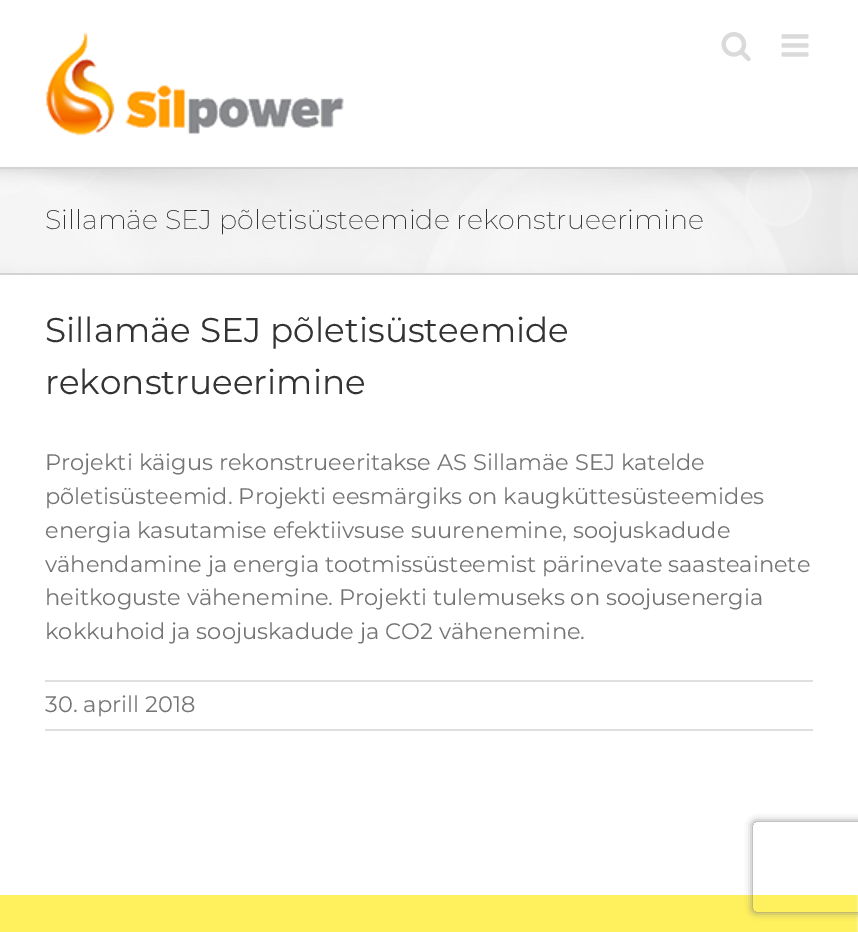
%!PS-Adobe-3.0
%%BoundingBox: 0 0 858 932
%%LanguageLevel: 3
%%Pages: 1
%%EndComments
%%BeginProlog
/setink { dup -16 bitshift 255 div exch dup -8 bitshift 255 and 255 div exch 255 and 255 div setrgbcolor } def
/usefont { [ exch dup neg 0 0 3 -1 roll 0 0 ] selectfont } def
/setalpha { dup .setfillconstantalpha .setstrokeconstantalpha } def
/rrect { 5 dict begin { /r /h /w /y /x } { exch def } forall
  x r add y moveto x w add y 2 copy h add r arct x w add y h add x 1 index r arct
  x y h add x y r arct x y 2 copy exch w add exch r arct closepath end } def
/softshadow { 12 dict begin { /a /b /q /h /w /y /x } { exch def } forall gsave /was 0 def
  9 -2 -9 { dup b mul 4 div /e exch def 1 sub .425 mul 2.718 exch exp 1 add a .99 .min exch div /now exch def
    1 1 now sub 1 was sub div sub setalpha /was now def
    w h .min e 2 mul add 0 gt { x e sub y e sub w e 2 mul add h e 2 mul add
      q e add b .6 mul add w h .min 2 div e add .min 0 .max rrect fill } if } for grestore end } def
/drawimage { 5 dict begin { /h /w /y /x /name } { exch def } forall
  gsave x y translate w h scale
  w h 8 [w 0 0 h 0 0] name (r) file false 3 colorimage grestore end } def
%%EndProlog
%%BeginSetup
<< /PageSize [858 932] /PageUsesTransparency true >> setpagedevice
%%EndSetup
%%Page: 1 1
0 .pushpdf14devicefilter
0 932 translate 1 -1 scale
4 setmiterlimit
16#FFFFFF setink
0 0 858 932 rectfill
(img1.raw) 46 32 298 104 drawimage
(img2.raw) 721 32 30 30 drawimage
(img3.raw) 781 34 28 23 drawimage
16#F6F6F6 setink
0 169 858 104 rectfill
(img4.raw) 0 169 858 104 drawimage
16#D2D3D4 setink
0 167 858 2 rectfill
0 273 858 2 rectfill
/Montserrat-ExtraLight 27 usefont
16#333333 setink
45 229 moveto (Sillamäe SEJ põletisüsteemide rekonstrueerimine) show
/Montserrat-Regular 34.25 usefont
45 342 moveto (Sillamäe SEJ põletisüsteemide) show
45 394 moveto (rekonstrueerimine) show
/Montserrat-Regular 22.5 usefont
16#747474 setink
[
    [(Projekti käigus rekonstrueeritakse AS Sillamäe SEJ katelde) 45 470]
    [(põletisüsteemid. Projekti eesmärgiks on kaugküttesüsteemides) 45 504]
    [(energia kasutamise efektiivsuse suurenemine, soojuskadude) 45 538]
    [(vähendamine ja energia tootmissüsteemist pärinevate saasteainete) 45 572]
    [(heitkoguste vähenemine. Projekti tulemuseks on soojusenergia) 45 605]
    [(kokkuhoid ja soojuskadude ja CO2 vähenemine.) 45 639]
] { aload pop moveto show } forall
16#E0DEDE setink
45 680 768 2 rectfill
45 729 768 2 rectfill
16#747474 setink
45 712 moveto (30. aprill 2018) show
(img5.raw) 0 895 858 37 drawimage
gsave
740 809 moveto 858 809 lineto 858 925 lineto 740 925 lineto closepath 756 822 moveto 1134 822 lineto 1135.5 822 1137 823.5 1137 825 curveto 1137 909 lineto 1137 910.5 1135.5 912 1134 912 curveto 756 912 lineto 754.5 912 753 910.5 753 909 curveto 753 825 lineto 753 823.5 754.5 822 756 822 curveto closepath eoclip newpath
16#808080 setink
753 822 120 90 3 4 1 softshadow
grestore
.poppdf14devicefilter showpage
%%EOF
